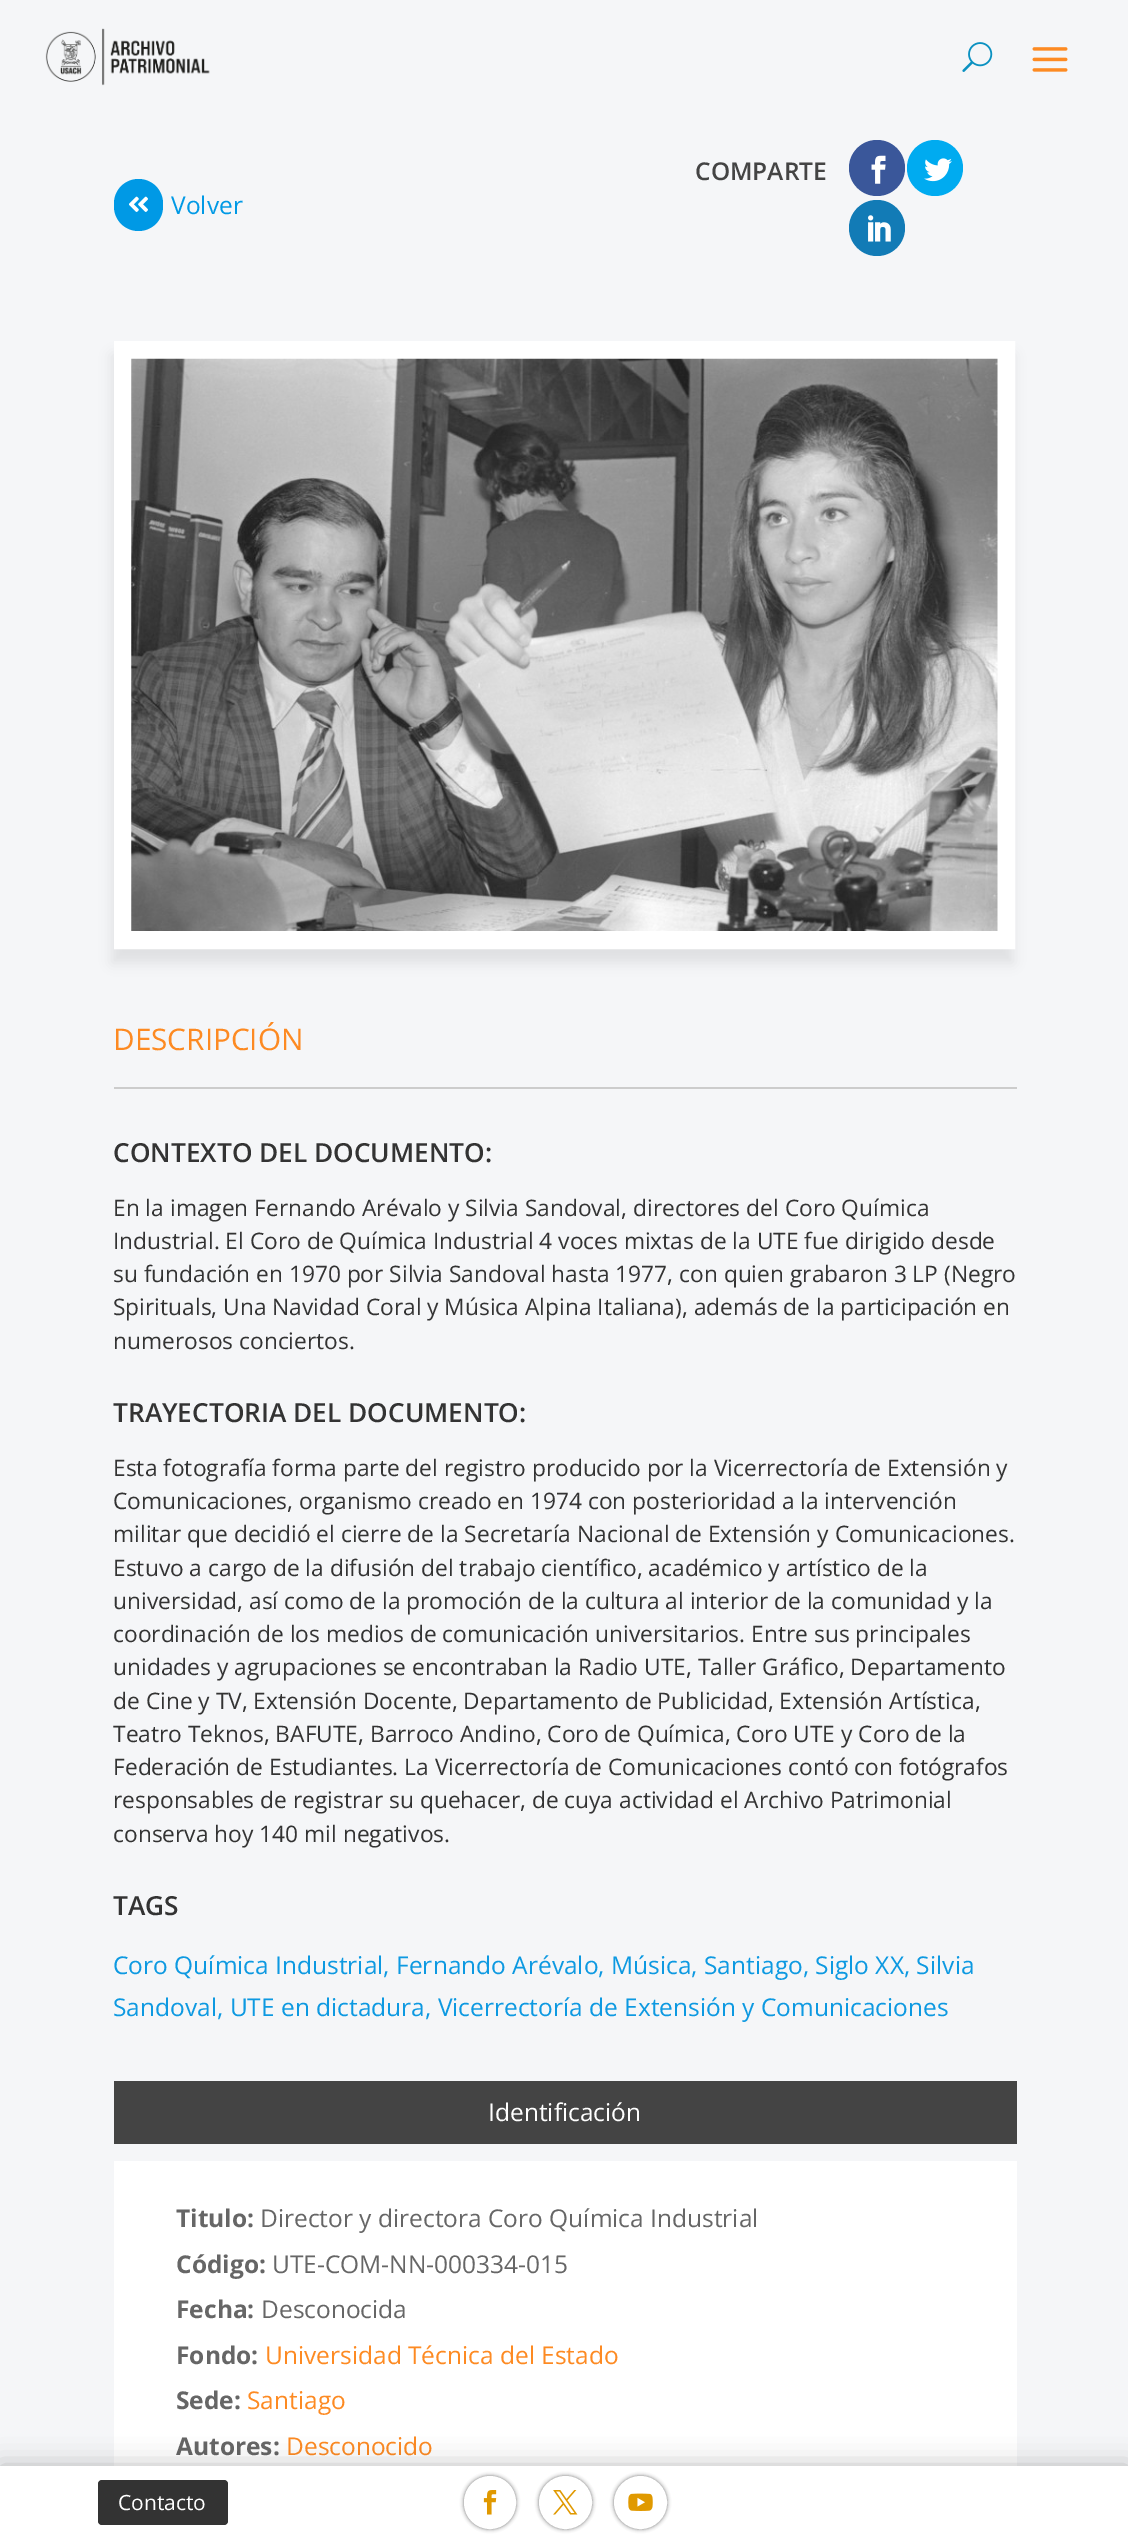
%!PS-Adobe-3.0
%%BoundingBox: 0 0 1128 2535
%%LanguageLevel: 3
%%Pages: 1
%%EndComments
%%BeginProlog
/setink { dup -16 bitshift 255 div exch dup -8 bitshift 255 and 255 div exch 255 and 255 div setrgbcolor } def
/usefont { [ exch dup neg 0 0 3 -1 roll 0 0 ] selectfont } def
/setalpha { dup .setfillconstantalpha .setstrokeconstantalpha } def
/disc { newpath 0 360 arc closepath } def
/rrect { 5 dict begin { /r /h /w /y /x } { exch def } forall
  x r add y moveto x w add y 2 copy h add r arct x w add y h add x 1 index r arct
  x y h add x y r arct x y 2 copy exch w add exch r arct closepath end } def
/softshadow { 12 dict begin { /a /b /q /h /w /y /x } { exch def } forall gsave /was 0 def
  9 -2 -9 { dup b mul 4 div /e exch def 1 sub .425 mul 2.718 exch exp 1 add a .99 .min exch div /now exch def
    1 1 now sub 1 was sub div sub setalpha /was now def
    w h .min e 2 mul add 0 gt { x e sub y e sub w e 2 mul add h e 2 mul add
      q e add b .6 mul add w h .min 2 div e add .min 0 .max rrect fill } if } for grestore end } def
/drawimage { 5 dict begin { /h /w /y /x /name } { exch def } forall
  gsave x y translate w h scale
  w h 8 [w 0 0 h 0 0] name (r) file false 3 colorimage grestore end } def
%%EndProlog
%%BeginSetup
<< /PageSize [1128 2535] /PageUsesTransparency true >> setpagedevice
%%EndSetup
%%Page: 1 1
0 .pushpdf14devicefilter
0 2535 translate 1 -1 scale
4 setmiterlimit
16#F5F6F8 setink
0 0 1128 2535 rectfill
/OpenSans-SemiBold 24.5 usefont
16#444444 setink
695 180 moveto (COMPARTE) show
16#3A579A setink
877 168 28 disc fill
(img1.raw) 871 155 15 29 drawimage
16#00ABF0 setink
935 168 28 disc fill
(img2.raw) 924 158 28 24 drawimage
16#127BB6 setink
877 228 28 disc fill
(img3.raw) 868 215 23 27 drawimage
16#0099E5 setink
114 179 49 52 24.5 rrect fill
(img4.raw) 129 196 19 16 drawimage
/OpenSans-Regular 24.5 usefont
171 214 moveto (Volver) show
16#000000 setink
112 355 901 608 0 6 0.08 softshadow
16#FFFFFF setink
18 setlinewidth
123 350 883 590 rectstroke
(img5.raw) 131 358 867 573 drawimage
16#CCCCCC setink
114 1087 903 2 rectfill
/OpenSans-Regular 29.75 usefont
16#FD8A22 setink
113 1050 moveto (DESCRIPCIÓN) show
/OpenSans-SemiBold 26.25 usefont
16#333333 setink
113 1162 moveto (CONTEXTO DEL DOCUMENTO:) show
/OpenSans-Regular 22.75 usefont
[
    [(En la imagen Fernando Arévalo y Silvia Sandoval, directores del Coro Química) 113 1216]
    [(Industrial. El Coro de Química Industrial 4 voces mixtas de la UTE fue dirigido desde) 113 1249]
    [(su fundación en 1970 por Silvia Sandoval hasta 1977, con quien grabaron 3 LP \(Negro) 113 1282]
    [(Spirituals, Una Navidad Coral y Música Alpina Italiana\), además de la participación en) 113 1315]
    [(numerosos conciertos.) 113 1349]
] { aload pop moveto show } forall
/OpenSans-SemiBold 26.25 usefont
113 1422 moveto (TRAYECTORIA DEL DOCUMENTO:) show
/OpenSans-Regular 22.75 usefont
[
    [(Esta fotografía forma parte del registro producido por la Vicerrectoría de Extensión y) 113 1476]
    [(Comunicaciones, organismo creado en 1974 con posterioridad a la intervención) 113 1509]
    [(militar que decidió el cierre de la Secretaría Nacional de Extensión y Comunicaciones.) 113 1542]
    [(Estuvo a cargo de la difusión del trabajo científico, académico y artístico de la) 113 1576]
    [(universidad, así como de la promoción de la cultura al interior de la comunidad y la) 113 1609]
    [(coordinación de los medios de comunicación universitarios. Entre sus principales) 113 1642]
    [(unidades y agrupaciones se encontraban la Radio UTE, Taller Gráfico, Departamento) 113 1675]
    [(de Cine y TV, Extensión Docente, Departamento de Publicidad, Extensión Artística,) 113 1709]
    [(Teatro Teknos, BAFUTE, Barroco Andino, Coro de Química, Coro UTE y Coro de la) 113 1742]
    [(Federación de Estudiantes. La Vicerrectoría de Comunicaciones contó con fotógrafos) 113 1775]
    [(responsables de registrar su quehacer, de cuya actividad el Archivo Patrimonial) 113 1808]
    [(conserva hoy 140 mil negativos.) 113 1842]
] { aload pop moveto show } forall
/OpenSans-SemiBold 26.25 usefont
113 1915 moveto (TAGS) show
/OpenSans-Regular 24.5 usefont
16#0D99E1 setink
113 1974 moveto (Coro Química Industrial, Fernando Arévalo, Música, Santiago, Siglo XX, Silvia) show
113 2016 moveto (Sandoval, UTE en dictadura, Vicerrectoría de Extensión y Comunicaciones) show
16#444444 setink
114 2081 903 63 rectfill
16#FFFFFF setink
488 2121 moveto (Identificación) show
114 2161 903 305 rectfill
/OpenSans-Bold 24.5 usefont
16#666666 setink
176 2227 moveto (Titulo:) show
/OpenSans-Regular 24.5 usefont
260 2227 moveto (Director y directora Coro Química Industrial) show
/OpenSans-Bold 24.5 usefont
176 2273 moveto (Código:) show
/OpenSans-Regular 24.5 usefont
272 2273 moveto (UTE-COM-NN-000334-015) show
/OpenSans-Bold 24.5 usefont
176 2318 moveto (Fecha:) show
/OpenSans-Regular 24.5 usefont
261 2318 moveto (Desconocida) show
/OpenSans-Bold 24.5 usefont
176 2364 moveto (Fondo:) show
/OpenSans-Regular 24.5 usefont
16#FD8A22 setink
265 2364 moveto (Universidad Técnica del Estado) show
/OpenSans-Bold 24.5 usefont
16#666666 setink
176 2409 moveto (Sede:) show
/OpenSans-Regular 24.5 usefont
16#FD8A22 setink
247 2409 moveto (Santiago) show
/OpenSans-Bold 24.5 usefont
16#666666 setink
176 2455 moveto (Autores:) show
/OpenSans-Regular 24.5 usefont
16#FD8A22 setink
286 2455 moveto (Desconocido) show
(img6.raw) 45 28 165 58 drawimage
(img7.raw) 962 42 31 30 drawimage
(img8.raw) 1032 47 36 25 drawimage
16#000000 setink
0 2466 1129 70 0 13 0.25 softshadow
16#FFFFFF setink
0 2466 1128 69 rectfill
16#333333 setink
98 2480 130 45 4 rrect fill
/OpenSans-Regular 21 usefont
16#FFFFFF setink
118 2510 moveto (Contacto) show
16#000000 setink
464 2476 52 53 26 2 0.57 softshadow
16#FFFFFF setink
465 2477 50 51 25 rrect gsave fill grestore
2 setlinewidth
stroke
(img9.raw) 483 2490 14 25 drawimage
16#000000 setink
539 2476 53 53 26.5 2 0.57 softshadow
16#FFFFFF setink
565.5 2502.5 25.5 disc gsave fill grestore
stroke
(img10.raw) 553 2490 25 25 drawimage
16#000000 setink
614 2476 53 53 26.5 2 0.57 softshadow
16#FFFFFF setink
640.5 2502.5 25.5 disc gsave fill grestore
stroke
(img11.raw) 628 2493 25 18 drawimage
.poppdf14devicefilter showpage
%%EOF
